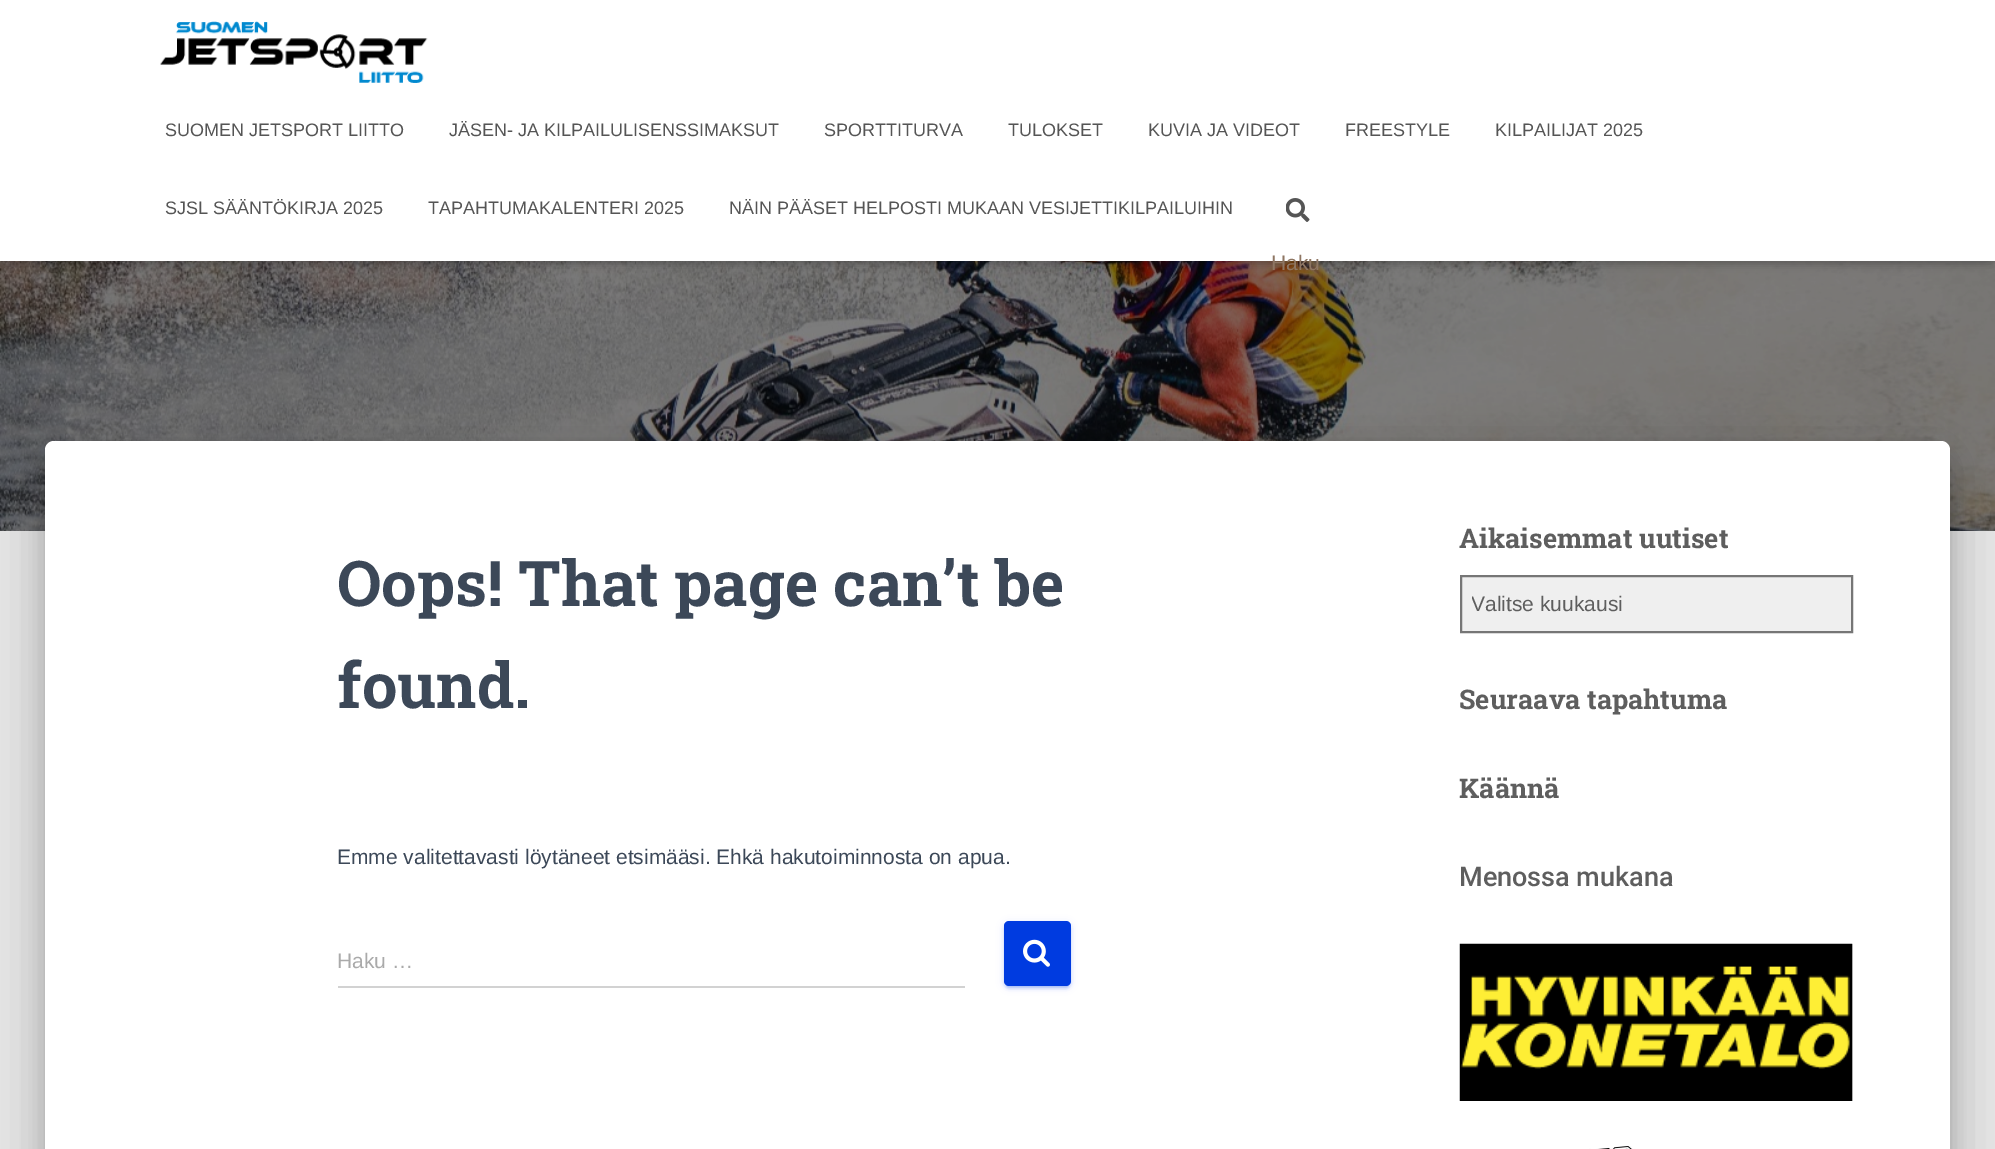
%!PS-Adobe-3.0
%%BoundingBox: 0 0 1995 1149
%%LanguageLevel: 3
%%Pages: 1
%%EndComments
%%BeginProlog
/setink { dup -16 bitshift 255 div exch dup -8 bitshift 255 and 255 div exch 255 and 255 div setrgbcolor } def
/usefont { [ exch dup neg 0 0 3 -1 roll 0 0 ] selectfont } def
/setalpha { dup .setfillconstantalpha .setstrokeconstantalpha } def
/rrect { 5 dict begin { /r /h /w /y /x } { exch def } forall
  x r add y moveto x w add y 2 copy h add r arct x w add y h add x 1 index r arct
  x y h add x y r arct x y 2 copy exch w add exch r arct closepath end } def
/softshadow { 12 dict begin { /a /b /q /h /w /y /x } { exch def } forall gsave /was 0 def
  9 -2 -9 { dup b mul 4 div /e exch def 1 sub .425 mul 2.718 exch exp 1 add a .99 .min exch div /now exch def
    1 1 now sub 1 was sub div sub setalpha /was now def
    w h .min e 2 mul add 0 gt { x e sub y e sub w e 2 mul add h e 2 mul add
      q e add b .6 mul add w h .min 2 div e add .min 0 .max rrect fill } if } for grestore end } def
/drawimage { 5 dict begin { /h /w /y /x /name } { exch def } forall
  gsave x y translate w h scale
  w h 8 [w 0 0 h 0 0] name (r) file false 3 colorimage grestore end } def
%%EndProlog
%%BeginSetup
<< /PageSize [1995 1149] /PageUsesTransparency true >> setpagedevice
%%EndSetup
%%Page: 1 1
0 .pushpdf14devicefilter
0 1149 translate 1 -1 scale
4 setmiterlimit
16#E5E5E5 setink
0 0 1995 1149 rectfill
(img3.raw) 0 261 1995 270 drawimage
16#000000 setink
3 9 1989 255 0 4 0.1 softshadow
0 2 1995 261 0 7.5 0.12 softshadow
9 11 1977 243 0 7.5 0.42 softshadow
16#FFFFFF setink
0 0 1995 261 rectfill
(img1.raw) 160 21 268 62 drawimage
/LiberationSans-Regular 18 usefont
16#555555 setink
[
    [(SUOMEN JETSPORT LIITTO) 165 136]
    [(JÄSEN- JA KILPAILULISENSSIMAKSUT) 449 136]
    [(SPORTTITURVA) 824 136]
    [(TULOKSET) 1008 136]
    [(KUVIA JA VIDEOT) 1148 136]
    [(FREESTYLE) 1345 136]
    [(KILPAILIJAT 2025) 1495 136]
    [(SJSL SÄÄNTÖKIRJA 2025) 165 214]
    [(TAPAHTUMAKALENTERI 2025) 428 214]
    [(NÄIN PÄÄSET HELPOSTI MUKAAN VESIJETTIKILPAILUIHIN) 729 214]
] { aload pop moveto show } forall
(img2.raw) 1286 198 24 24 drawimage
/LiberationSans-Regular 21 usefont
16#8E7663 setink
1271 270 moveto (Haku) show
16#000000 setink
53 461 1890 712 1.5 7.5 0.2 softshadow
38 443 1920 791 17 22.5 0.12 softshadow
42 462 1911 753 12 18 0.14 softshadow
16#FFFFFF setink
54 441 moveto 1941 441 lineto 1946 441 1950 445 1950 450 curveto 1950 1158 lineto 45 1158 lineto 45 450 lineto 45 445 49 441 54 441 curveto closepath fill
/RobotoSlab-Bold 63 usefont
16#3C4858 setink
337 606 moveto (Oops! That page can’t be) show
337 708 moveto (found.) show
/LiberationSans-Regular 21 usefont
337 864 moveto (Emme valitettavasti löytäneet etsimääsi. Ehkä hakutoiminnosta on apua.) show
16#AAAAAA setink
337 968 moveto (Haku …) show
16#D2D2D2 setink
338 986 627 2 rectfill
16#003BE0 setink
1004 923 67 64 5 4 0.12 softshadow
1007 929 61 58 1.5 1 0.2 softshadow
1004 924 67 65 5 1.5 0.14 softshadow
1004 921 67 65 5 rrect fill
(img4.raw) 1023 939 27 28 drawimage
/RobotoSlab-Bold 27 usefont
16#5E5E5E setink
1459 548 moveto (Aikaisemmat uutiset) show
16#EFEFEF setink
1461 576 moveto 1852 576 lineto 1852 632 lineto 1461 632 lineto closepath gsave fill grestore
16#767676 setink
2 setlinewidth
stroke
gsave
1472 587 369 34 rectclip
/LiberationSans-Regular 21 usefont
16#5E5E5E setink
1471 611 moveto (Valitse kuukausi) show
grestore
16#5E5E5E setink
1459 709 moveto (Seuraava tapahtuma) show
1459 798 moveto (Käännä) show
/Roboto-Medium 27 usefont
1459 886 moveto (Menossa mukana) show
16#E6E6E6 setink
1852 944 1 157 rectfill
(img5.raw) 1459 943 394 158 drawimage
(img6.raw) 1460 1146 178 3 drawimage
.poppdf14devicefilter showpage
%%EOF
